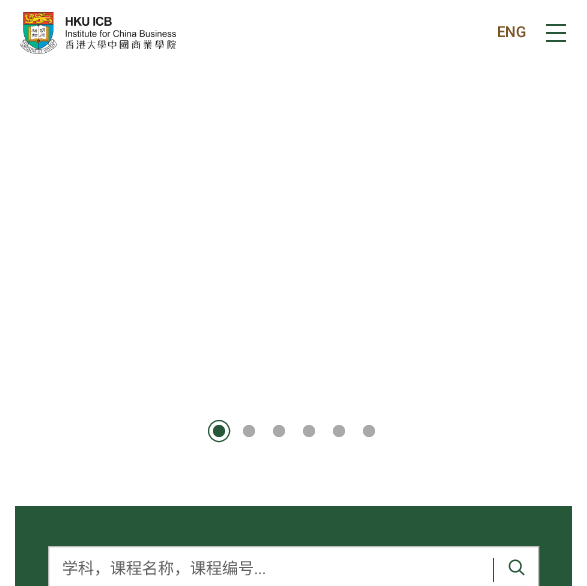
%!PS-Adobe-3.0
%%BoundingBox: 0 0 587 586
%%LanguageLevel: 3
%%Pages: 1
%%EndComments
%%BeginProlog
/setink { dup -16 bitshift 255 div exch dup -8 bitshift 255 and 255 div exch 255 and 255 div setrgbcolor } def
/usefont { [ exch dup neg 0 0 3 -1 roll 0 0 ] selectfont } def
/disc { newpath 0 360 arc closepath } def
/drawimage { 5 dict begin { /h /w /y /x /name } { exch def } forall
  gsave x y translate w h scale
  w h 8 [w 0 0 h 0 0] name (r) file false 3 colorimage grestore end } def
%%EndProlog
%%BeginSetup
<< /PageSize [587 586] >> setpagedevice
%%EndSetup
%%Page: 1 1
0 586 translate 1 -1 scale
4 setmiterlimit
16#FFFFFF setink
0 0 587 586 rectfill
(img1.raw) 20 12 156 42 drawimage
/Roboto-Medium 15 usefont
16#7A5326 setink
497 37 moveto (ENG) show
[
    [546 24 20 2 16#265738]
    [546 32 20 2 16#265738]
    [546 40 20 2 16#265738]
] { aload pop setink rectfill } forall
219 431 6 disc fill
219 431 10.5 disc stroke
16#A9A9A9 setink
249 431 6 disc fill
279 431 6 disc fill
309 431 6 disc fill
339 431 6 disc fill
369 431 6 disc fill
16#265738 setink
15 506 557 80 rectfill
16#FFFFFF setink
48.5 546.5 moveto 538.5 546.5 lineto 538.5 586.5 lineto 48.5 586.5 lineto closepath gsave fill grestore
16#BBBBBB setink
stroke
/NotoSansCJKSC-Regular 16 usefont
16#626262 setink
62 574 moveto (学科，课程名称，课程编号) show
/Roboto-Regular 16 usefont
254 574 moveto (...) show
16#265738 setink
493 558 1 24 rectfill
(img2.raw) 508 559 17 17 drawimage
showpage
%%EOF
